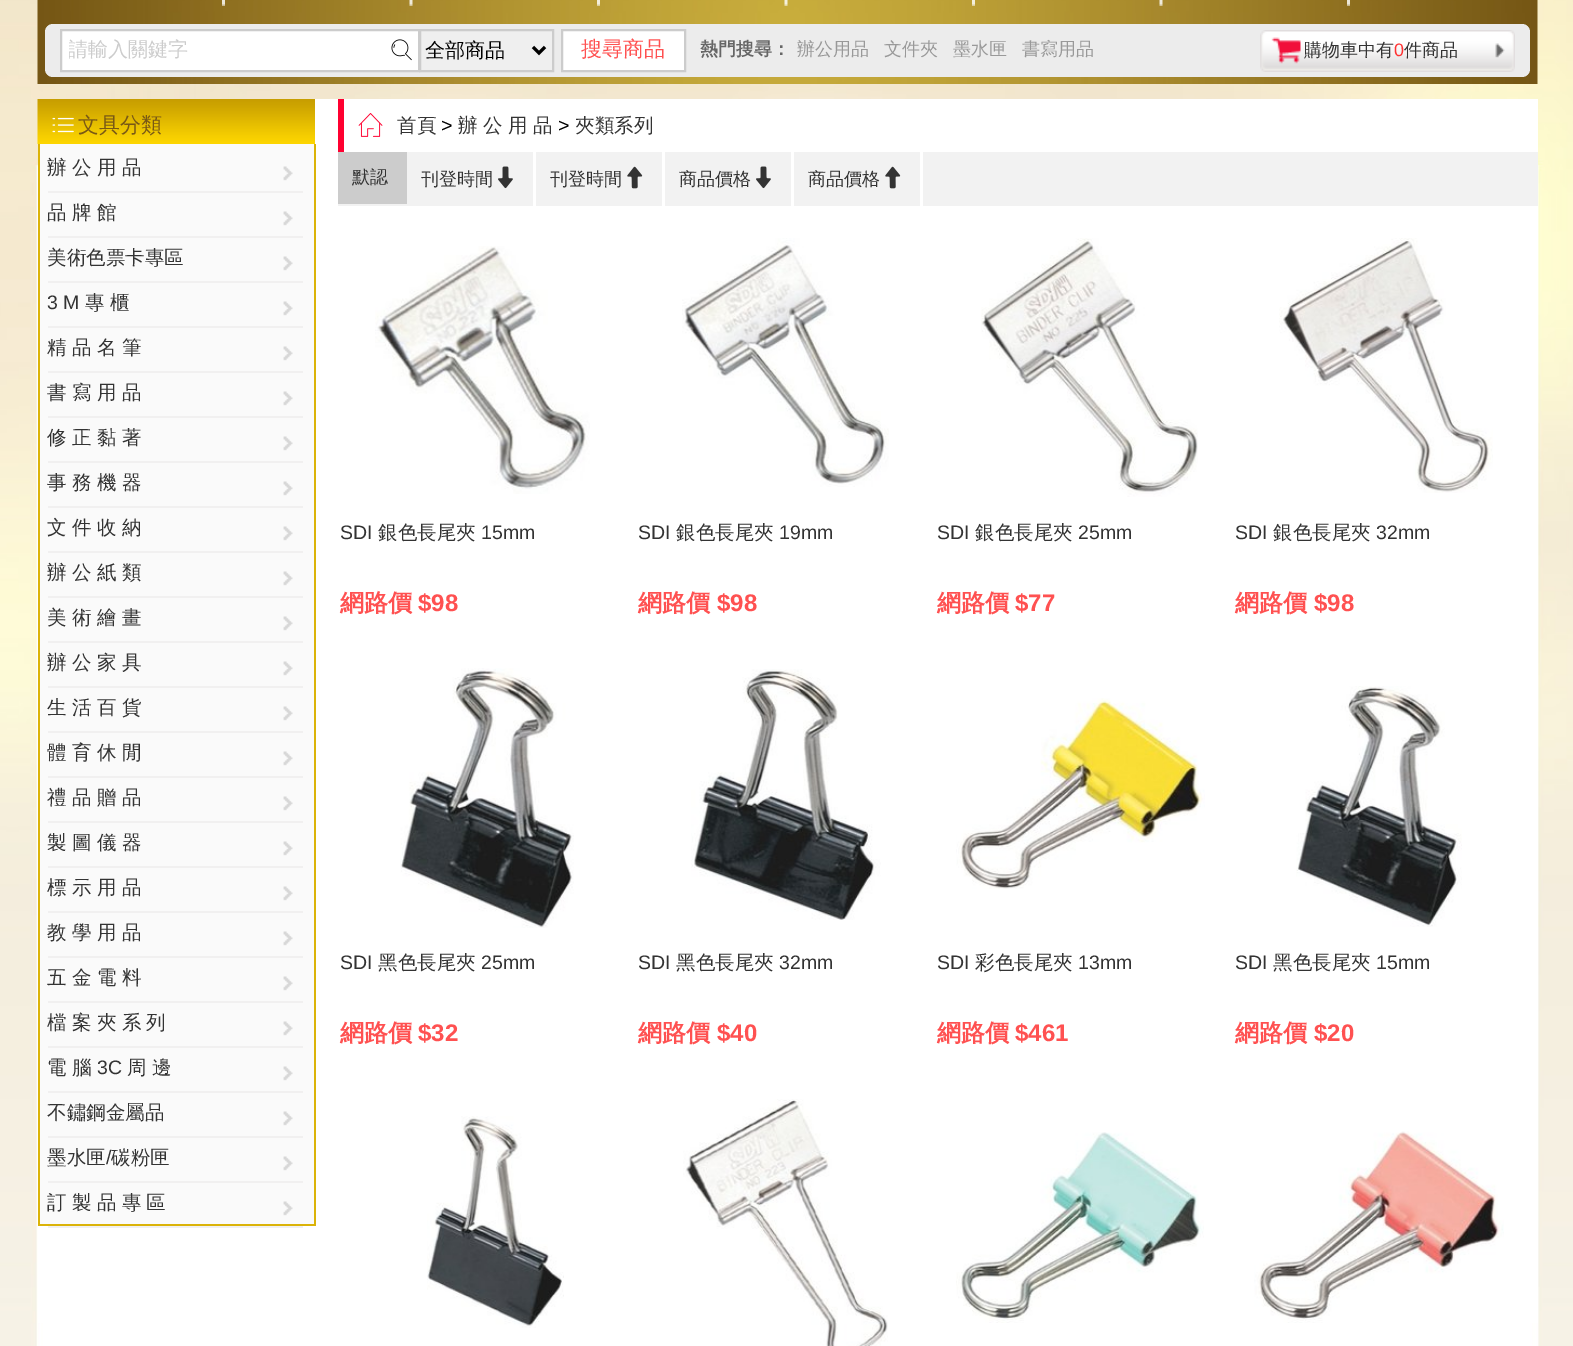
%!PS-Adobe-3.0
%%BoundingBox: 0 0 1573 1346
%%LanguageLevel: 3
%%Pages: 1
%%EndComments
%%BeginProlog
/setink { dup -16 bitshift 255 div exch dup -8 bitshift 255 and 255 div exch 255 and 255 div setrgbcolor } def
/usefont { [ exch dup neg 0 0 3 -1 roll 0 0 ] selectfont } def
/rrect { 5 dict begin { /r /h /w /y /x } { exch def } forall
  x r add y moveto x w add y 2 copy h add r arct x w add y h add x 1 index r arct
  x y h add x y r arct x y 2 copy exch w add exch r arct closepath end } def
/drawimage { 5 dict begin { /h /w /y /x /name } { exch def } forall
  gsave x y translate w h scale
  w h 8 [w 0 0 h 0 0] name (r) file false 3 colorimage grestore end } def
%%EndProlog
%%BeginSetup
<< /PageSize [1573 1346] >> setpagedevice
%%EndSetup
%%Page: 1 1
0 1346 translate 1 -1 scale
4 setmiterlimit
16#FFFFFF setink
0 0 1573 1346 rectfill
(img1.raw) 0 0 1573 1346 drawimage
(img2.raw) 37 0 1501 84 drawimage
(img3.raw) 222 0 3 6 drawimage
(img4.raw) 409 0 4 6 drawimage
(img5.raw) 597 0 3 6 drawimage
(img6.raw) 784 0 4 6 drawimage
(img7.raw) 972 0 3 6 drawimage
(img8.raw) 1159 0 4 6 drawimage
(img9.raw) 1347 0 3 6 drawimage
16#ECECEC setink
45 24 1485 53 8 rrect fill
16#FFFFFF setink
61 30 moveto 419 30 lineto 419 71 lineto 61 71 lineto closepath gsave fill grestore
16#CCCCCC setink
2 setlinewidth
stroke
gsave
69 38 305 27 rectclip
/WenQuanYiZenHei-Medium 20 usefont
68 56 moveto (請輸入關鍵字) show
grestore
(img10.raw) 391 39 21 22 drawimage
16#EFEFEF setink
420 30 moveto 553 30 lineto 553 71 lineto 420 71 lineto closepath gsave fill grestore
16#CCCCCC setink
stroke
16#000000 setink
3 setlinewidth
533 47 moveto 539 53 lineto 545 47 lineto stroke
/WenQuanYiZenHei-Medium 20 usefont
425 57 moveto (全部商品) show
16#FFFFFF setink
562 30 moveto 685 30 lineto 685 71 lineto 562 71 lineto closepath gsave fill grestore
16#CCCCCC setink
2 setlinewidth
stroke
/WenQuanYiZenHei-Medium 21 usefont
16#FF5151 setink
581 56 moveto (搜尋商品) show
/WenQuanYiZenHei-Bold 18 usefont
16#666666 setink
700 55 moveto (熱門搜尋：) show
/WenQuanYiZenHei-Medium 18 usefont
16#999999 setink
[
    [(辦公用品) 797 55]
    [(文件夾) 884 55]
    [(墨水匣) 953 55]
    [(書寫用品) 1022 55]
] { aload pop moveto show } forall
(img11.raw) 1260 30 255 42 drawimage
16#333333 setink
1304 56 moveto (購物車中有) show
/LiberationSans-Regular 18 usefont
16#FF3333 setink
1394 56 moveto (0) show
/WenQuanYiZenHei-Medium 18 usefont
16#333333 setink
1404 56 moveto (件商品) show
16#FFFFFF setink
38 99 1500 1224 rectfill
(img12.raw) 37 99 278 45 drawimage
(img13.raw) 52 117 22 16 drawimage
/WenQuanYiZenHei-Medium 21 usefont
16#785816 setink
78 132 moveto (文具分類) show
[
    [40 144 274 1080 16#FAFAFA]
    [314 144 2 1082 16#DBB308]
    [38 1224 277 2 16#DBB308]
    [38 144 2 1082 16#DBB308]
    [48 191 255 2 16#F1F0F0]
] { aload pop setink rectfill } forall
(img14.raw) 283 166 10 15 drawimage
/WenQuanYiZenHei-Medium 19.5 usefont
16#333333 setink
47 174 moveto -0.5 0 32 (辦 公 用 品) widthshow
16#F1F0F0 setink
48 236 255 2 rectfill
(img14.raw) 283 211 10 15 drawimage
16#333333 setink
47 219 moveto -0.5 0 32 (品 牌 館) widthshow
16#F1F0F0 setink
48 281 255 2 rectfill
(img14.raw) 283 256 10 15 drawimage
16#333333 setink
47 264 moveto (美術色票卡專區) show
16#F1F0F0 setink
48 326 255 2 rectfill
(img14.raw) 283 301 10 15 drawimage
/LiberationSans-Regular 19.5 usefont
16#333333 setink
47 309 moveto (3 M) show
/WenQuanYiZenHei-Medium 19.5 usefont
85 309 moveto (專) show
110 309 moveto (櫃) show
16#F1F0F0 setink
48 371 255 2 rectfill
(img14.raw) 283 346 10 15 drawimage
16#333333 setink
47 354 moveto -0.5 0 32 (精 品 名 筆) widthshow
16#F1F0F0 setink
48 416 255 2 rectfill
(img14.raw) 283 391 10 15 drawimage
16#333333 setink
47 399 moveto -0.5 0 32 (書 寫 用 品) widthshow
16#F1F0F0 setink
48 461 255 2 rectfill
(img14.raw) 283 436 10 15 drawimage
16#333333 setink
47 444 moveto -0.5 0 32 (修 正 黏 著) widthshow
16#F1F0F0 setink
48 506 255 2 rectfill
(img14.raw) 283 481 10 15 drawimage
16#333333 setink
47 489 moveto -0.5 0 32 (事 務 機 器) widthshow
16#F1F0F0 setink
48 551 255 2 rectfill
(img14.raw) 283 526 10 15 drawimage
16#333333 setink
47 534 moveto -0.5 0 32 (文 件 收 納) widthshow
16#F1F0F0 setink
48 596 255 2 rectfill
(img14.raw) 283 571 10 15 drawimage
16#333333 setink
47 579 moveto -0.5 0 32 (辦 公 紙 類) widthshow
16#F1F0F0 setink
48 641 255 2 rectfill
(img14.raw) 283 616 10 15 drawimage
16#333333 setink
47 624 moveto -0.5 0 32 (美 術 繪 畫) widthshow
16#F1F0F0 setink
48 686 255 2 rectfill
(img14.raw) 283 661 10 15 drawimage
16#333333 setink
47 669 moveto -0.5 0 32 (辦 公 家 具) widthshow
16#F1F0F0 setink
48 731 255 2 rectfill
(img14.raw) 283 706 10 15 drawimage
16#333333 setink
47 714 moveto -0.5 0 32 (生 活 百 貨) widthshow
16#F1F0F0 setink
48 776 255 2 rectfill
(img14.raw) 283 751 10 15 drawimage
16#333333 setink
47 759 moveto -0.5 0 32 (體 育 休 閒) widthshow
16#F1F0F0 setink
48 821 255 2 rectfill
(img14.raw) 283 796 10 15 drawimage
16#333333 setink
47 804 moveto -0.5 0 32 (禮 品 贈 品) widthshow
16#F1F0F0 setink
48 866 255 2 rectfill
(img14.raw) 283 841 10 15 drawimage
16#333333 setink
47 849 moveto -0.5 0 32 (製 圖 儀 器) widthshow
16#F1F0F0 setink
48 911 255 2 rectfill
(img14.raw) 283 886 10 15 drawimage
16#333333 setink
47 894 moveto -0.5 0 32 (標 示 用 品) widthshow
16#F1F0F0 setink
48 956 255 2 rectfill
(img14.raw) 283 931 10 15 drawimage
16#333333 setink
47 939 moveto -0.5 0 32 (教 學 用 品) widthshow
16#F1F0F0 setink
48 1001 255 2 rectfill
(img14.raw) 283 976 10 15 drawimage
16#333333 setink
47 984 moveto -0.5 0 32 (五 金 電 料) widthshow
16#F1F0F0 setink
48 1046 255 2 rectfill
(img14.raw) 283 1021 10 15 drawimage
16#333333 setink
47 1029 moveto -0.5 0 32 (檔 案 夾 系 列) widthshow
16#F1F0F0 setink
48 1091 255 2 rectfill
(img14.raw) 283 1066 10 15 drawimage
16#333333 setink
47 1074 moveto (電 腦) show
/LiberationSans-Regular 19.5 usefont
97 1074 moveto (3C) show
/WenQuanYiZenHei-Medium 19.5 usefont
127 1074 moveto (周 邊) show
16#F1F0F0 setink
48 1136 255 2 rectfill
(img14.raw) 283 1111 10 15 drawimage
16#333333 setink
47 1119 moveto (不鏽鋼金屬品) show
16#F1F0F0 setink
48 1181 255 2 rectfill
(img14.raw) 283 1156 10 15 drawimage
16#333333 setink
47 1164 moveto (墨水匣) show
/LiberationSans-Regular 19.5 usefont
106 1164 moveto (/) show
/WenQuanYiZenHei-Medium 19.5 usefont
111 1164 moveto (碳粉匣) show
16#F1F0F0 setink
48 1226 255 2 rectfill
(img14.raw) 283 1201 10 15 drawimage
16#333333 setink
47 1209 moveto -0.5 0 32 (訂 製 品 專 區) widthshow
16#FF0030 setink
338 99 6 53 rectfill
(img15.raw) 358 113 25 24 drawimage
16#333333 setink
397 132 moveto (首頁) show
/LiberationSans-Regular 19.5 usefont
16#000000 setink
441 132 moveto (>) show
/WenQuanYiZenHei-Medium 19.5 usefont
16#333333 setink
458 132 moveto -0.5 0 32 (辦 公 用 品) widthshow
/LiberationSans-Regular 19.5 usefont
16#000000 setink
558 132 moveto (>) show
/WenQuanYiZenHei-Medium 19.5 usefont
16#333333 setink
575 132 moveto (夾類系列) show
16#F2F2F2 setink
338 152 1200 54 rectfill
16#CCCCCC setink
338 152 69 52 rectfill
/WenQuanYiZenHei-Medium 18 usefont
16#333333 setink
352 183 moveto (默認) show
16#FFFFFF setink
533 152 3 54 rectfill
16#333333 setink
421 185 moveto (刊登時間) show
(img16.raw) 498 166 15 23 drawimage
16#FFFFFF setink
662 152 3 54 rectfill
16#333333 setink
550 185 moveto (刊登時間) show
(img17.raw) 627 166 16 23 drawimage
16#FFFFFF setink
791 152 3 54 rectfill
16#333333 setink
679 185 moveto (商品價格) show
(img16.raw) 756 166 15 23 drawimage
16#FFFFFF setink
920 152 3 54 rectfill
16#333333 setink
808 185 moveto (商品價格) show
(img17.raw) 885 166 16 23 drawimage
(img18.raw) 375 246 215 248 drawimage
/LiberationSans-Regular 19.5 usefont
340 539 moveto (SDI) show
/WenQuanYiZenHei-Medium 19.5 usefont
378 539 moveto (銀色長尾夾) show
/LiberationSans-Regular 19.5 usefont
481 539 moveto (15mm) show
/WenQuanYiZenHei-Bold 24 usefont
16#FF5151 setink
340 611 moveto (網路價) show
/LiberationSans-Bold 24 usefont
418 611 moveto ($98) show
(img19.raw) 682 238 207 249 drawimage
/LiberationSans-Regular 19.5 usefont
16#333333 setink
638 539 moveto (SDI) show
/WenQuanYiZenHei-Medium 19.5 usefont
676 539 moveto (銀色長尾夾) show
/LiberationSans-Regular 19.5 usefont
779 539 moveto (19mm) show
/WenQuanYiZenHei-Bold 24 usefont
16#FF5151 setink
638 611 moveto (網路價) show
/LiberationSans-Bold 24 usefont
717 611 moveto ($98) show
(img20.raw) 981 238 217 259 drawimage
/LiberationSans-Regular 19.5 usefont
16#333333 setink
937 539 moveto (SDI) show
/WenQuanYiZenHei-Medium 19.5 usefont
975 539 moveto (銀色長尾夾) show
/LiberationSans-Regular 19.5 usefont
1078 539 moveto (25mm) show
/WenQuanYiZenHei-Bold 24 usefont
16#FF5151 setink
937 611 moveto (網路價) show
/LiberationSans-Bold 24 usefont
1015 611 moveto ($77) show
(img21.raw) 1279 238 214 255 drawimage
/LiberationSans-Regular 19.5 usefont
16#333333 setink
1235 539 moveto (SDI) show
/WenQuanYiZenHei-Medium 19.5 usefont
1273 539 moveto (銀色長尾夾) show
/LiberationSans-Regular 19.5 usefont
1376 539 moveto (32mm) show
/WenQuanYiZenHei-Bold 24 usefont
16#FF5151 setink
1235 611 moveto (網路價) show
/LiberationSans-Bold 24 usefont
1314 611 moveto ($98) show
(img22.raw) 400 668 174 260 drawimage
/LiberationSans-Regular 19.5 usefont
16#333333 setink
340 969 moveto (SDI) show
/WenQuanYiZenHei-Medium 19.5 usefont
378 969 moveto (黑色長尾夾) show
/LiberationSans-Regular 19.5 usefont
481 969 moveto (25mm) show
/WenQuanYiZenHei-Bold 24 usefont
16#FF5151 setink
340 1041 moveto (網路價) show
/LiberationSans-Bold 24 usefont
418 1041 moveto ($32) show
(img23.raw) 691 669 190 251 drawimage
/LiberationSans-Regular 19.5 usefont
16#333333 setink
638 969 moveto (SDI) show
/WenQuanYiZenHei-Medium 19.5 usefont
676 969 moveto (黑色長尾夾) show
/LiberationSans-Regular 19.5 usefont
779 969 moveto (32mm) show
/WenQuanYiZenHei-Bold 24 usefont
16#FF5151 setink
638 1041 moveto (網路價) show
/LiberationSans-Bold 24 usefont
717 1041 moveto ($40) show
(img24.raw) 956 698 249 191 drawimage
/LiberationSans-Regular 19.5 usefont
16#333333 setink
937 969 moveto (SDI) show
/WenQuanYiZenHei-Medium 19.5 usefont
975 969 moveto (彩色長尾夾) show
/LiberationSans-Regular 19.5 usefont
1078 969 moveto (13mm) show
/WenQuanYiZenHei-Bold 24 usefont
16#FF5151 setink
937 1041 moveto (網路價) show
/LiberationSans-Bold 24 usefont
1015 1041 moveto ($461) show
(img25.raw) 1296 686 166 241 drawimage
/LiberationSans-Regular 19.5 usefont
16#333333 setink
1235 969 moveto (SDI) show
/WenQuanYiZenHei-Medium 19.5 usefont
1273 969 moveto (黑色長尾夾) show
/LiberationSans-Regular 19.5 usefont
1376 969 moveto (15mm) show
/WenQuanYiZenHei-Bold 24 usefont
16#FF5151 setink
1235 1041 moveto (網路價) show
/LiberationSans-Bold 24 usefont
1314 1041 moveto ($20) show
(img26.raw) 427 1116 137 212 drawimage
(img27.raw) 683 1099 205 247 drawimage
(img28.raw) 956 1132 248 191 drawimage
(img29.raw) 1254 1131 250 192 drawimage
showpage
%%EOF
